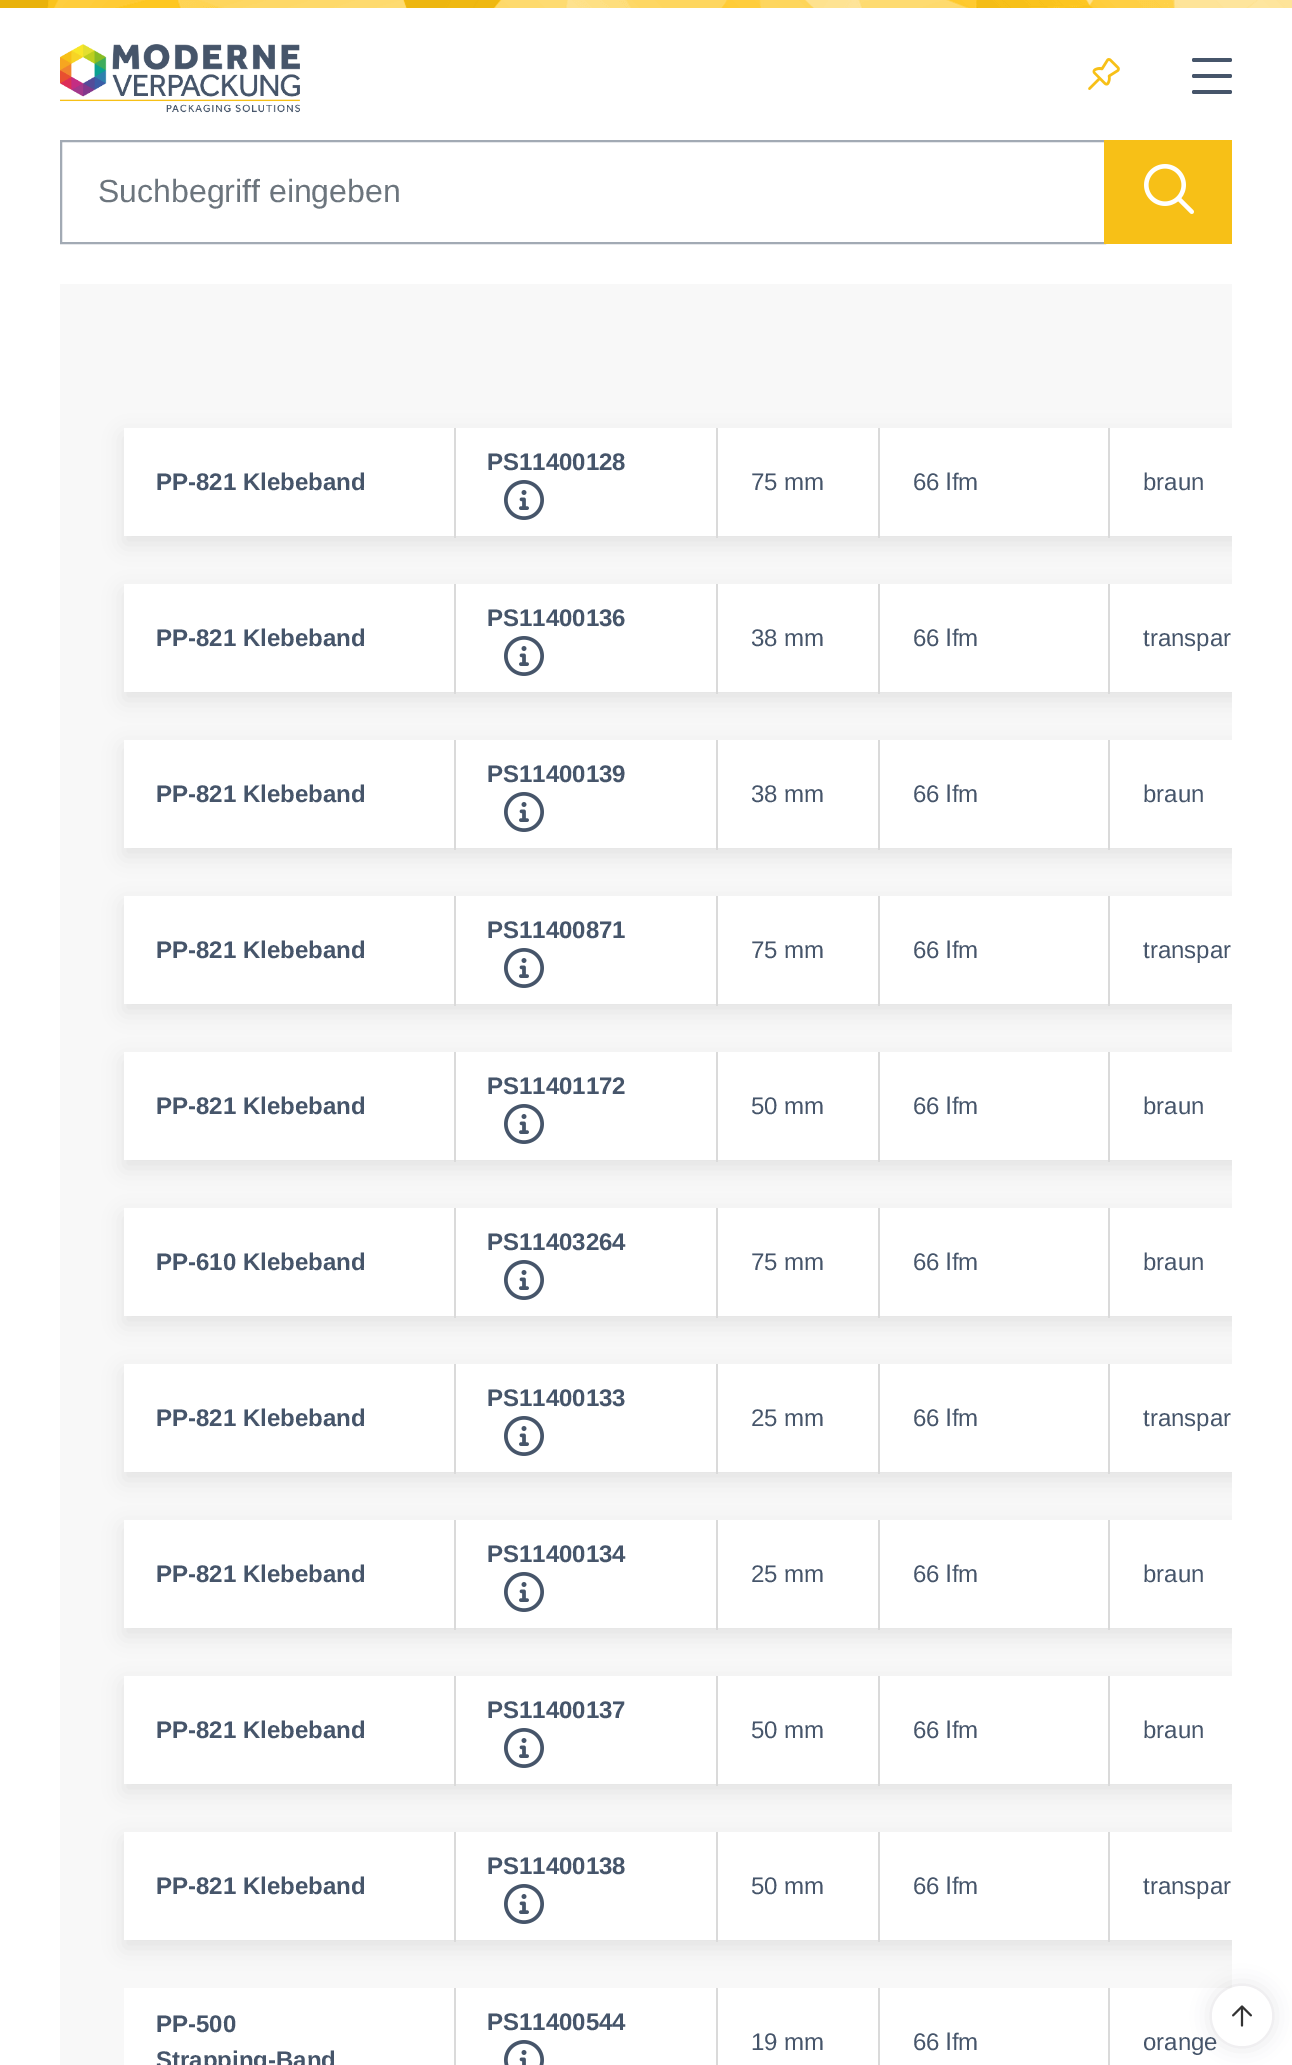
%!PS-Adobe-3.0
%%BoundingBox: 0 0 1292 2065
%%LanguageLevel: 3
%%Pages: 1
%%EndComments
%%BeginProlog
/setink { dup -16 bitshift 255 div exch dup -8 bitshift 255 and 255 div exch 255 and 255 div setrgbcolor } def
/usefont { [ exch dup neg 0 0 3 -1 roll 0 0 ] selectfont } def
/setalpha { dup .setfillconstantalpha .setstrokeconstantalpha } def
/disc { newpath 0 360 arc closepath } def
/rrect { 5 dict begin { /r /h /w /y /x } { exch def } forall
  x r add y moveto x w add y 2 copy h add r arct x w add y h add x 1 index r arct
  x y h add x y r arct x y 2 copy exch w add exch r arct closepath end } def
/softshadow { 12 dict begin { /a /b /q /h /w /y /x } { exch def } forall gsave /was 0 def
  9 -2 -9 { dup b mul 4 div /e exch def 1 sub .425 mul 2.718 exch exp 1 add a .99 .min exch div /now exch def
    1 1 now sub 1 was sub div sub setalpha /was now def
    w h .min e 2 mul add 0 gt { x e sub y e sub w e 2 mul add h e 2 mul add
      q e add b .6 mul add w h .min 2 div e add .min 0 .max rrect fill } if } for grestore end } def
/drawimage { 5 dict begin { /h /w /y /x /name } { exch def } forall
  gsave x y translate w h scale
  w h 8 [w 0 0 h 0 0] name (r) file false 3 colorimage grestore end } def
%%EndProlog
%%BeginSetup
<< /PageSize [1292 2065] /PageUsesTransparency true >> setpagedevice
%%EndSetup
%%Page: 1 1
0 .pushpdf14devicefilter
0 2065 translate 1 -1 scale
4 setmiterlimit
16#FFFFFF setink
0 0 1292 2065 rectfill
(img1.raw) 0 0 1292 8 drawimage
(img2.raw) 60 44 240 69 drawimage
(img3.raw) 1088 58 32 32 drawimage
16#46556A setink
1192 58 40 4 2 rrect fill
1192 74 40 4 2 rrect fill
1192 90 40 4 2 rrect fill
16#A2AAB4 setink
2 setlinewidth
61 141 1044 102 rectstroke
/LiberationSans-Regular 32 usefont
16#6C757D setink
98 202 moveto (Suchbegriff eingeben) show
16#F7C017 setink
1104 140 128 104 rectfill
(img4.raw) 1144 164 50 50 drawimage
16#F8F8F8 setink
60 284 1172 1781 rectfill
gsave
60 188 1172 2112 rectclip
16#000000 setink
124 436 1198 108 0 10 0.08 softshadow
grestore
16#FFFFFF setink
124 428 1108 108 rectfill
16#DADADA setink
454 428 2 110 rectfill
/LiberationSans-Bold 24 usefont
16#46556A setink
487 470 moveto (PS11400128) show
(img5.raw) 504 480 40 40 drawimage
156 490 moveto (PP-821 Klebeband) show
16#DADADA setink
716 428 2 110 rectfill
/LiberationSans-Regular 24 usefont
16#46556A setink
751 490 moveto (75 mm) show
16#DADADA setink
878 428 2 110 rectfill
16#46556A setink
913 490 moveto (66 lfm) show
16#DADADA setink
1108 428 2 110 rectfill
16#46556A setink
1143 490 moveto (braun) show
gsave
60 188 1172 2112 rectclip
16#000000 setink
124 592 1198 108 0 10 0.08 softshadow
grestore
16#FFFFFF setink
124 584 1108 108 rectfill
16#DADADA setink
454 584 2 110 rectfill
/LiberationSans-Bold 24 usefont
16#46556A setink
487 626 moveto (PS11400136) show
(img5.raw) 504 636 40 40 drawimage
156 646 moveto (PP-821 Klebeband) show
16#DADADA setink
716 584 2 110 rectfill
/LiberationSans-Regular 24 usefont
16#46556A setink
751 646 moveto (38 mm) show
16#DADADA setink
878 584 2 110 rectfill
16#46556A setink
913 646 moveto (66 lfm) show
16#DADADA setink
1108 584 2 110 rectfill
16#46556A setink
1143 646 moveto (transpar) show
gsave
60 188 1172 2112 rectclip
16#000000 setink
124 748 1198 108 0 10 0.08 softshadow
grestore
16#FFFFFF setink
124 740 1108 108 rectfill
16#DADADA setink
454 740 2 110 rectfill
/LiberationSans-Bold 24 usefont
16#46556A setink
487 782 moveto (PS11400139) show
(img5.raw) 504 792 40 40 drawimage
156 802 moveto (PP-821 Klebeband) show
16#DADADA setink
716 740 2 110 rectfill
/LiberationSans-Regular 24 usefont
16#46556A setink
751 802 moveto (38 mm) show
16#DADADA setink
878 740 2 110 rectfill
16#46556A setink
913 802 moveto (66 lfm) show
16#DADADA setink
1108 740 2 110 rectfill
16#46556A setink
1143 802 moveto (braun) show
gsave
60 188 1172 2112 rectclip
16#000000 setink
124 904 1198 108 0 10 0.08 softshadow
grestore
16#FFFFFF setink
124 896 1108 108 rectfill
16#DADADA setink
454 896 2 110 rectfill
/LiberationSans-Bold 24 usefont
16#46556A setink
487 938 moveto (PS11400871) show
(img5.raw) 504 948 40 40 drawimage
156 958 moveto (PP-821 Klebeband) show
16#DADADA setink
716 896 2 110 rectfill
/LiberationSans-Regular 24 usefont
16#46556A setink
751 958 moveto (75 mm) show
16#DADADA setink
878 896 2 110 rectfill
16#46556A setink
913 958 moveto (66 lfm) show
16#DADADA setink
1108 896 2 110 rectfill
16#46556A setink
1143 958 moveto (transpar) show
gsave
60 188 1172 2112 rectclip
16#000000 setink
124 1060 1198 108 0 10 0.08 softshadow
grestore
16#FFFFFF setink
124 1052 1108 108 rectfill
16#DADADA setink
454 1052 2 110 rectfill
/LiberationSans-Bold 24 usefont
16#46556A setink
487 1094 moveto (PS11401172) show
(img5.raw) 504 1104 40 40 drawimage
156 1114 moveto (PP-821 Klebeband) show
16#DADADA setink
716 1052 2 110 rectfill
/LiberationSans-Regular 24 usefont
16#46556A setink
751 1114 moveto (50 mm) show
16#DADADA setink
878 1052 2 110 rectfill
16#46556A setink
913 1114 moveto (66 lfm) show
16#DADADA setink
1108 1052 2 110 rectfill
16#46556A setink
1143 1114 moveto (braun) show
gsave
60 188 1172 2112 rectclip
16#000000 setink
124 1216 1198 108 0 10 0.08 softshadow
grestore
16#FFFFFF setink
124 1208 1108 108 rectfill
16#DADADA setink
454 1208 2 110 rectfill
/LiberationSans-Bold 24 usefont
16#46556A setink
487 1250 moveto (PS11403264) show
(img5.raw) 504 1260 40 40 drawimage
156 1270 moveto (PP-610 Klebeband) show
16#DADADA setink
716 1208 2 110 rectfill
/LiberationSans-Regular 24 usefont
16#46556A setink
751 1270 moveto (75 mm) show
16#DADADA setink
878 1208 2 110 rectfill
16#46556A setink
913 1270 moveto (66 lfm) show
16#DADADA setink
1108 1208 2 110 rectfill
16#46556A setink
1143 1270 moveto (braun) show
gsave
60 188 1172 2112 rectclip
16#000000 setink
124 1372 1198 108 0 10 0.08 softshadow
grestore
16#FFFFFF setink
124 1364 1108 108 rectfill
16#DADADA setink
454 1364 2 110 rectfill
/LiberationSans-Bold 24 usefont
16#46556A setink
487 1406 moveto (PS11400133) show
(img5.raw) 504 1416 40 40 drawimage
156 1426 moveto (PP-821 Klebeband) show
16#DADADA setink
716 1364 2 110 rectfill
/LiberationSans-Regular 24 usefont
16#46556A setink
751 1426 moveto (25 mm) show
16#DADADA setink
878 1364 2 110 rectfill
16#46556A setink
913 1426 moveto (66 lfm) show
16#DADADA setink
1108 1364 2 110 rectfill
16#46556A setink
1143 1426 moveto (transpar) show
gsave
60 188 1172 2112 rectclip
16#000000 setink
124 1528 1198 108 0 10 0.08 softshadow
grestore
16#FFFFFF setink
124 1520 1108 108 rectfill
16#DADADA setink
454 1520 2 110 rectfill
/LiberationSans-Bold 24 usefont
16#46556A setink
487 1562 moveto (PS11400134) show
(img5.raw) 504 1572 40 40 drawimage
156 1582 moveto (PP-821 Klebeband) show
16#DADADA setink
716 1520 2 110 rectfill
/LiberationSans-Regular 24 usefont
16#46556A setink
751 1582 moveto (25 mm) show
16#DADADA setink
878 1520 2 110 rectfill
16#46556A setink
913 1582 moveto (66 lfm) show
16#DADADA setink
1108 1520 2 110 rectfill
16#46556A setink
1143 1582 moveto (braun) show
gsave
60 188 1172 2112 rectclip
16#000000 setink
124 1684 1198 108 0 10 0.08 softshadow
grestore
16#FFFFFF setink
124 1676 1108 108 rectfill
16#DADADA setink
454 1676 2 110 rectfill
/LiberationSans-Bold 24 usefont
16#46556A setink
487 1718 moveto (PS11400137) show
(img5.raw) 504 1728 40 40 drawimage
156 1738 moveto (PP-821 Klebeband) show
16#DADADA setink
716 1676 2 110 rectfill
/LiberationSans-Regular 24 usefont
16#46556A setink
751 1738 moveto (50 mm) show
16#DADADA setink
878 1676 2 110 rectfill
16#46556A setink
913 1738 moveto (66 lfm) show
16#DADADA setink
1108 1676 2 110 rectfill
16#46556A setink
1143 1738 moveto (braun) show
gsave
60 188 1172 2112 rectclip
16#000000 setink
124 1840 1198 108 0 10 0.08 softshadow
grestore
16#FFFFFF setink
124 1832 1108 108 rectfill
16#DADADA setink
454 1832 2 110 rectfill
/LiberationSans-Bold 24 usefont
16#46556A setink
487 1874 moveto (PS11400138) show
(img5.raw) 504 1884 40 40 drawimage
156 1894 moveto (PP-821 Klebeband) show
16#DADADA setink
716 1832 2 110 rectfill
/LiberationSans-Regular 24 usefont
16#46556A setink
751 1894 moveto (50 mm) show
16#DADADA setink
878 1832 2 110 rectfill
16#46556A setink
913 1894 moveto (66 lfm) show
16#DADADA setink
1108 1832 2 110 rectfill
16#46556A setink
1143 1894 moveto (transpar) show
16#FFFFFF setink
124 1988 1108 77 rectfill
/LiberationSans-Bold 24 usefont
16#46556A setink
156 2032 moveto (PP-500) show
156 2068 moveto (Strapping-Band) show
16#DADADA setink
454 1988 2 77 rectfill
16#46556A setink
487 2030 moveto (PS11400544) show
(img6.raw) 504 2040 40 25 drawimage
16#DADADA setink
716 1988 2 77 rectfill
/LiberationSans-Regular 24 usefont
16#46556A setink
751 2050 moveto (19 mm) show
16#DADADA setink
878 1988 2 77 rectfill
16#46556A setink
913 2050 moveto (66 lfm) show
16#DADADA setink
1108 1988 2 77 rectfill
16#46556A setink
1143 2050 moveto (orange) show
16#3E3D40 setink
1212 1986 60 60 30 10 0.16 softshadow
16#FFFFFF setink
1242 2016 30 disc fill
(img7.raw) 1232 2005 20 22 drawimage
.poppdf14devicefilter showpage
%%EOF
